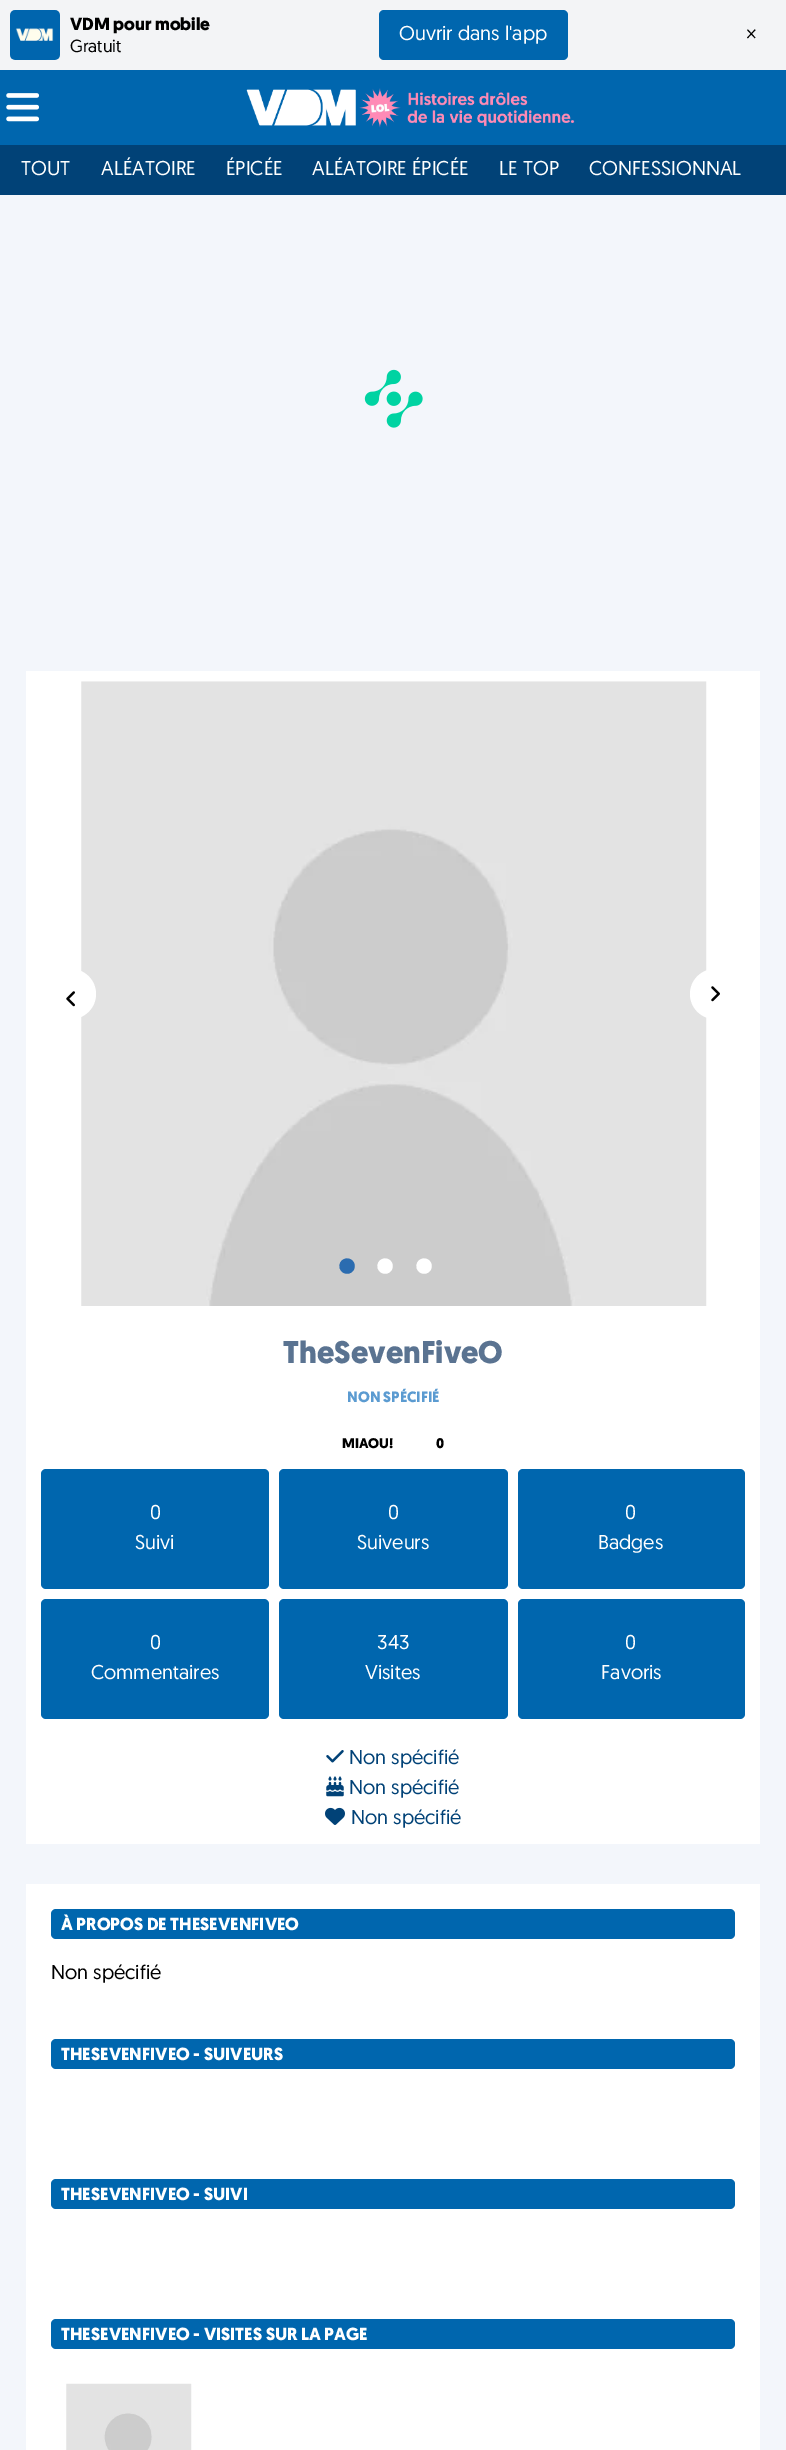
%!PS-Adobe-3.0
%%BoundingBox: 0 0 786 2450
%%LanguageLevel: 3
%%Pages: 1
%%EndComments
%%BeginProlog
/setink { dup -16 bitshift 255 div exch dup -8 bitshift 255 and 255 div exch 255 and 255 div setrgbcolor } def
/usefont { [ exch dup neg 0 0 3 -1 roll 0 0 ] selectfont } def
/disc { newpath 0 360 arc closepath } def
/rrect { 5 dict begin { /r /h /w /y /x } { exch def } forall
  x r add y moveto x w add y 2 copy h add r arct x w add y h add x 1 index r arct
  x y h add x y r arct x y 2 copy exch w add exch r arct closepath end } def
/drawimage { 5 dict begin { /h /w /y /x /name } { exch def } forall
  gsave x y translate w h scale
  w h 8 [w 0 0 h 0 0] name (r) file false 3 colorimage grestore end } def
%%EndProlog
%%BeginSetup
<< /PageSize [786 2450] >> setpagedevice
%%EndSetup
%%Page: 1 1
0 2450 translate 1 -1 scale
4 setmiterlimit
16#F3F6FB setink
0 0 786 2450 rectfill
16#F3F4F6 setink
0 0 786 70 rectfill
(img1.raw) 10 10 50 50 drawimage
/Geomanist-Bold 17.5 usefont
16#000000 setink
70 30 moveto (VDM pour mobile) show
/Geomanist-Regular 17.5 usefont
70 52 moveto (Gratuit) show
16#0066AE setink
379 10 189 50 5 rrect fill
/Geomanist-Regular 20 usefont
16#FFFFFF setink
399 40 moveto (Ouvrir dans l'app) show
16#000000 setink
746 40 moveto (×) show
16#0066AE setink
0 70 786 75 rectfill
(img2.raw) 6 93 33 29 drawimage
(img3.raw) 246 89 110 37 drawimage
(img4.raw) 359 88 216 40 drawimage
16#014277 setink
0 145 786 50 rectfill
16#FFFFFF setink
[
    [(TOUT) 21 175]
    [(ALÉATOIRE) 101 175]
    [(ÉPICÉE) 226 175]
    [(ALÉATOIRE ÉPICÉE) 312 175]
    [(LE TOP) 499 175]
    [(CONFESSIONNAL) 589 175]
] { aload pop moveto show } forall
(img5.raw) 364 369 59 59 drawimage
26 671 734 1173 rectfill
(img7.raw) 81 681 626 625 drawimage
71 994 25 disc fill
(img6.raw) 66 991 9 16 drawimage
715 994 25 disc fill
(img8.raw) 711 986 9 16 drawimage
/Geomanist-Regular 45 usefont
16#2B6CB0 setink
338 1280 moveto (•) show
16#FFFFFF setink
376 1280 moveto (•) show
415 1280 moveto (•) show
/Geomanist-Bold 31.25 usefont
16#5A7391 setink
283 1363 moveto (TheSevenFiveO) show
/Geomanist-Bold 15 usefont
16#5B9BD1 setink
347 1402 moveto (NON SPÉCIFIÉ) show
/Geomanist-Bold 14 usefont
16#000000 setink
342 1448 moveto (MIAOU!) show
436 1448 moveto (0) show
16#0066AE setink
41 1469 228 120 5 rrect fill
/Geomanist-Regular 20 usefont
16#FFFFFF setink
150 1519 moveto (0) show
135 1549 moveto (Suivi) show
16#0066AE setink
279 1469 229 120 5 rrect fill
16#FFFFFF setink
388 1519 moveto (0) show
357 1549 moveto (Suiveurs) show
16#0066AE setink
518 1469 227 120 5 rrect fill
16#FFFFFF setink
625 1519 moveto (0) show
598 1549 moveto (Badges) show
16#0066AE setink
41 1599 228 120 5 rrect fill
16#FFFFFF setink
150 1649 moveto (0) show
91 1679 moveto (Commentaires) show
16#0066AE setink
279 1599 229 120 5 rrect fill
16#FFFFFF setink
377 1649 moveto (343) show
365 1679 moveto (Visites) show
16#0066AE setink
518 1599 227 120 5 rrect fill
16#FFFFFF setink
625 1649 moveto (0) show
601 1679 moveto (Favoris) show
(img9.raw) 326 1750 18 13 drawimage
16#014277 setink
349 1764 moveto (Non spécifié) show
(img10.raw) 326 1776 18 21 drawimage
349 1794 moveto (Non spécifié) show
(img11.raw) 325 1807 20 18 drawimage
351 1824 moveto (Non spécifié) show
16#FFFFFF setink
26 1884 734 566 rectfill
16#0066AE setink
51 1909 684 30 5 rrect fill
/Geomanist-Bold 17.5 usefont
16#FFFFFF setink
61 1930 moveto (À PROPOS DE THESEVENFIVEO) show
/Geomanist-Regular 20 usefont
16#000000 setink
51 1979 moveto (Non spécifié) show
16#0066AE setink
51 2039 684 30 5 rrect fill
/Geomanist-Bold 17.5 usefont
16#FFFFFF setink
61 2060 moveto (THESEVENFIVEO - SUIVEURS) show
16#0066AE setink
51 2179 684 30 5 rrect fill
16#FFFFFF setink
61 2200 moveto (THESEVENFIVEO - SUIVI) show
16#0066AE setink
51 2319 684 30 5 rrect fill
16#FFFFFF setink
61 2340 moveto (THESEVENFIVEO - VISITES SUR LA PAGE) show
(img12.raw) 66 2383 126 67 drawimage
showpage
%%EOF
